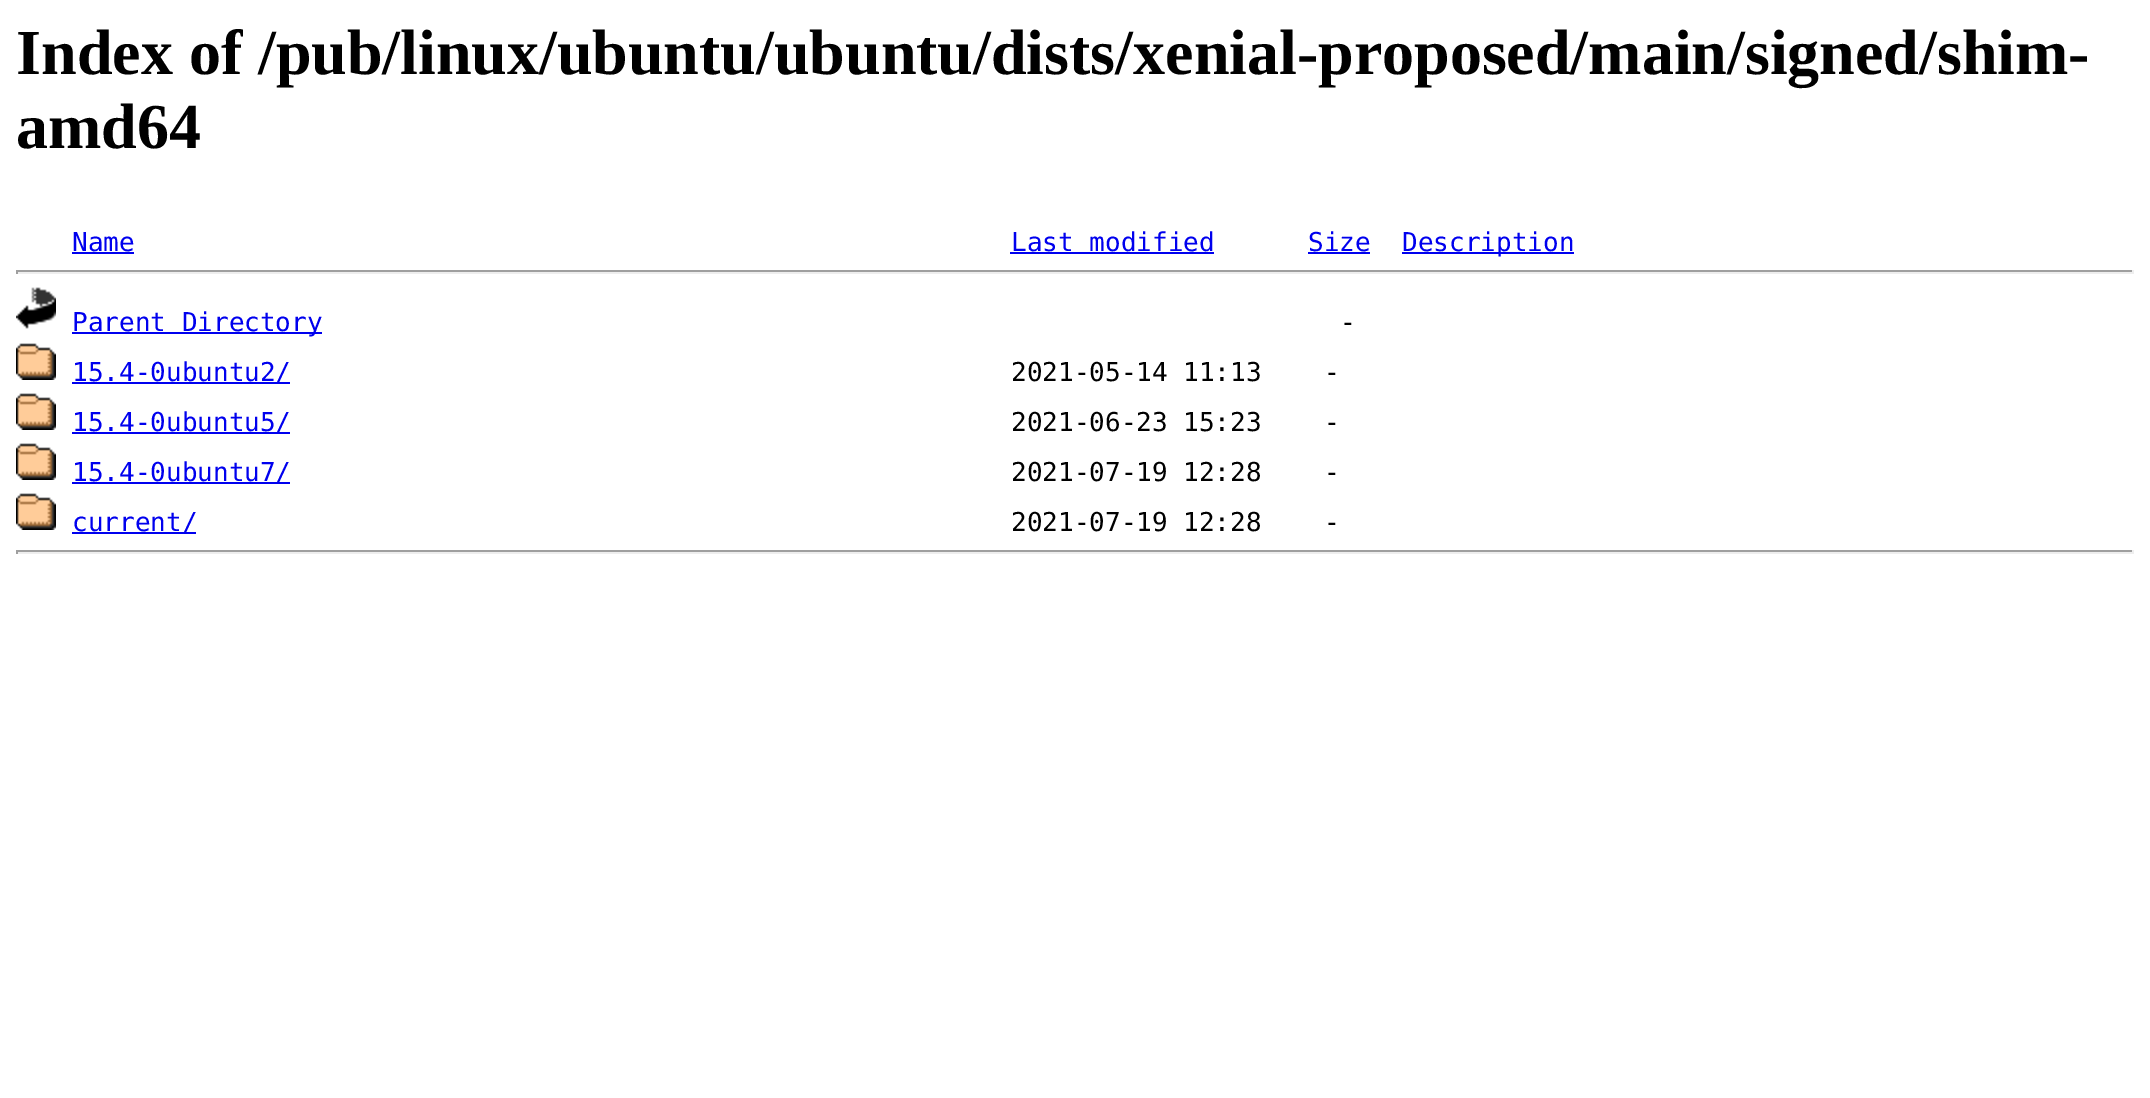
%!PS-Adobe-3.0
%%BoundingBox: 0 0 2150 1098
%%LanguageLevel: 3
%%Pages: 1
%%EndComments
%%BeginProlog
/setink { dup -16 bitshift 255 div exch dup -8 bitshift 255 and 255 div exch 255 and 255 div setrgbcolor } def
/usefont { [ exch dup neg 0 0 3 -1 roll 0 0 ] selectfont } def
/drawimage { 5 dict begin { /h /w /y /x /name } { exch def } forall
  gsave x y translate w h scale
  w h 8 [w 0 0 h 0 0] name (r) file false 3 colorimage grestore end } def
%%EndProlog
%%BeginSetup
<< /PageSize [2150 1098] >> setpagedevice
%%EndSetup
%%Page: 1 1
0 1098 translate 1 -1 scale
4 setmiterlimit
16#FFFFFF setink
0 0 2150 1098 rectfill
/LiberationSerif-Bold 64 usefont
16#000000 setink
16 74 moveto (Index of /pub/linux/ubuntu/ubuntu/dists/xenial-proposed/main/signed/shim-) show
16 148 moveto (amd64) show
/DejaVuSansMono-Regular 26 usefont
16#0000EE setink
72 251 moveto (Name) show
72 252 62 2 rectfill
1011 251 moveto (Last modified) show
1010 252 204 2 rectfill
1308 251 moveto (Size) show
1308 252 62 2 rectfill
1402 252 172 2 rectfill
1402 251 moveto (Description) show
[
    [16 270 2118 2 16#9F9F9F]
    [2132 270 2 4 16#EEEEEE]
    [16 272 2118 2 16#EEEEEE]
    [16 270 2 4 16#9F9F9F]
] { aload pop setink rectfill } forall
(img1.raw) 16 287 40 42 drawimage
16#0000EE setink
72 332 250 2 rectfill
72 331 moveto (Parent Directory) show
16#000000 setink
1340 331 moveto (-) show
(img2.raw) 16 343 40 37 drawimage
16#0000EE setink
72 382 218 2 rectfill
72 381 moveto (15.4-0ubuntu2/) show
16#000000 setink
1011 381 moveto (2021-05-14 11:13    -) show
(img2.raw) 16 393 40 37 drawimage
16#0000EE setink
72 432 218 2 rectfill
72 431 moveto (15.4-0ubuntu5/) show
16#000000 setink
1011 431 moveto (2021-06-23 15:23    -) show
(img2.raw) 16 443 40 37 drawimage
16#0000EE setink
72 482 218 2 rectfill
72 481 moveto (15.4-0ubuntu7/) show
16#000000 setink
1011 481 moveto (2021-07-19 12:28    -) show
(img2.raw) 16 493 40 37 drawimage
16#0000EE setink
72 532 124 2 rectfill
72 531 moveto (current/) show
16#000000 setink
1011 531 moveto (2021-07-19 12:28    -) show
[
    [16 550 2118 2 16#9F9F9F]
    [2132 550 2 4 16#EEEEEE]
    [16 552 2118 2 16#EEEEEE]
    [16 550 2 4 16#9F9F9F]
] { aload pop setink rectfill } forall
showpage
%%EOF
